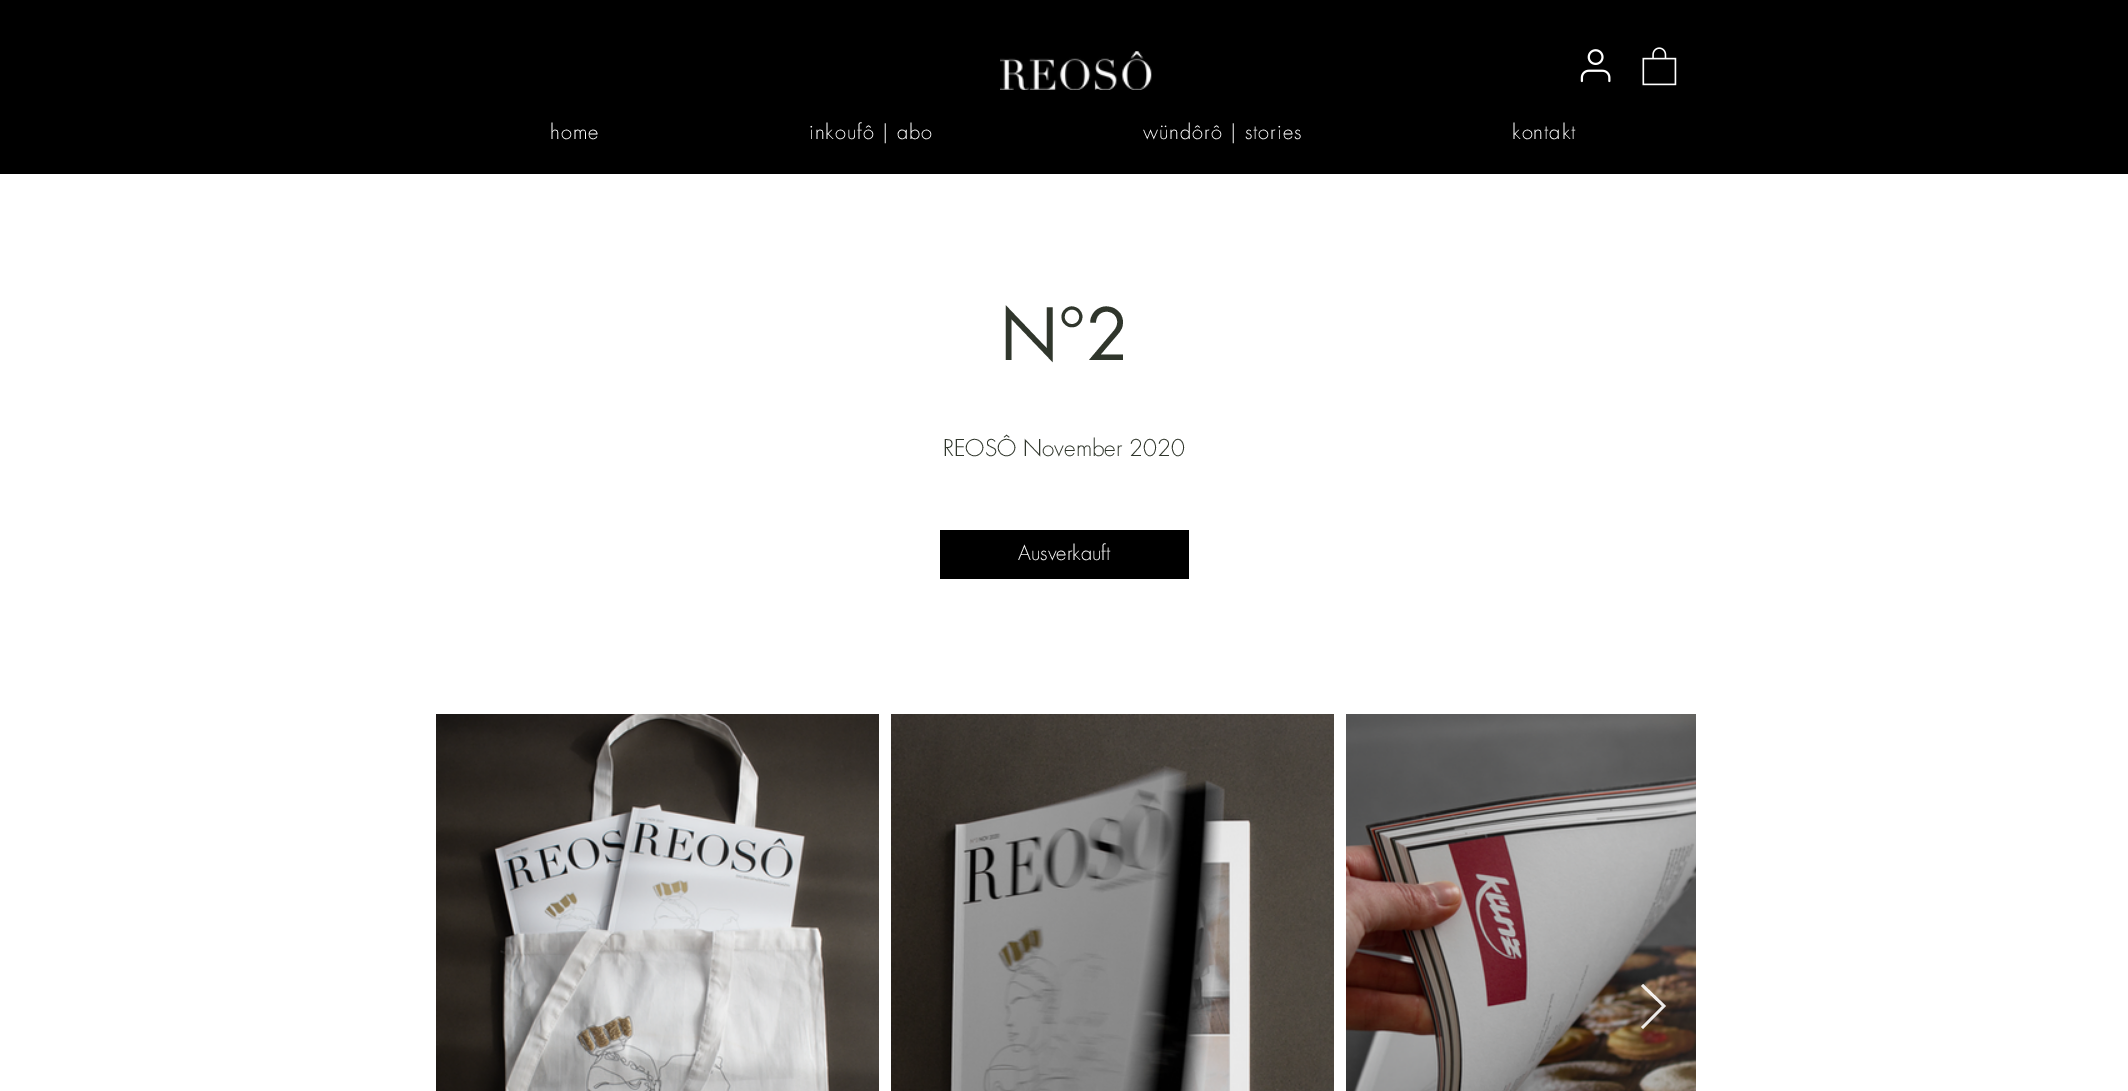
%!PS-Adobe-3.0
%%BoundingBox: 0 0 2128 1091
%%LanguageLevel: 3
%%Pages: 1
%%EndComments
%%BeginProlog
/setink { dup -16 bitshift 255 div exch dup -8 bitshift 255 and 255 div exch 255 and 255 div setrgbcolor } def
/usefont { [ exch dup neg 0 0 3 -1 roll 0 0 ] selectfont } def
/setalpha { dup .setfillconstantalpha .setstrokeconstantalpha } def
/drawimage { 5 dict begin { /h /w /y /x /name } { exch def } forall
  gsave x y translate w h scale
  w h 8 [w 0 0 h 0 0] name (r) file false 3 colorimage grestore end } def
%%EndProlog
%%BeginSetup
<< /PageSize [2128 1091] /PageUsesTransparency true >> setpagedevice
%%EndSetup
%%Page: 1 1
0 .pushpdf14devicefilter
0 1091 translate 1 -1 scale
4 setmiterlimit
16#FFFFFF setink
0 0 2128 1091 rectfill
16#000000 setink
0 0 2128 174 rectfill
(img1.raw) 1000 51 152 39 drawimage
(img2.raw) 1580 49 31 34 drawimage
(img3.raw) 1642 47 35 39 drawimage
/futura-Light 20 usefont
16#FFFFFF setink
550 139 moveto 1 0 (home) ashow
809 139 moveto 1 0 (inkoufô | abo) ashow
1143 139 moveto 1 0 (wündôrô | stories) ashow
1512 139 moveto 1 0 (kontakt) ashow
/futura-Regular 70 usefont
16#30362C setink
1000 360 moveto (N°2) show
/futura-Light 22.5 usefont
943 456 moveto (REOSÔ November 2020) show
16#000000 setink
940 530 249 49 rectfill
/futura-Light 20 usefont
16#FFFFFF setink
1018 560 moveto (Ausverkauft) show
(img4.raw) 436 714 443 377 drawimage
(img5.raw) 891 714 443 377 drawimage
(img6.raw) 1346 714 350 377 drawimage
0.9 setalpha
1641 986 moveto 1643 984 lineto 1666 1006 lineto 1643 1029 lineto 1641 1027 lineto 1662 1006 lineto closepath fill
.poppdf14devicefilter showpage
%%EOF
